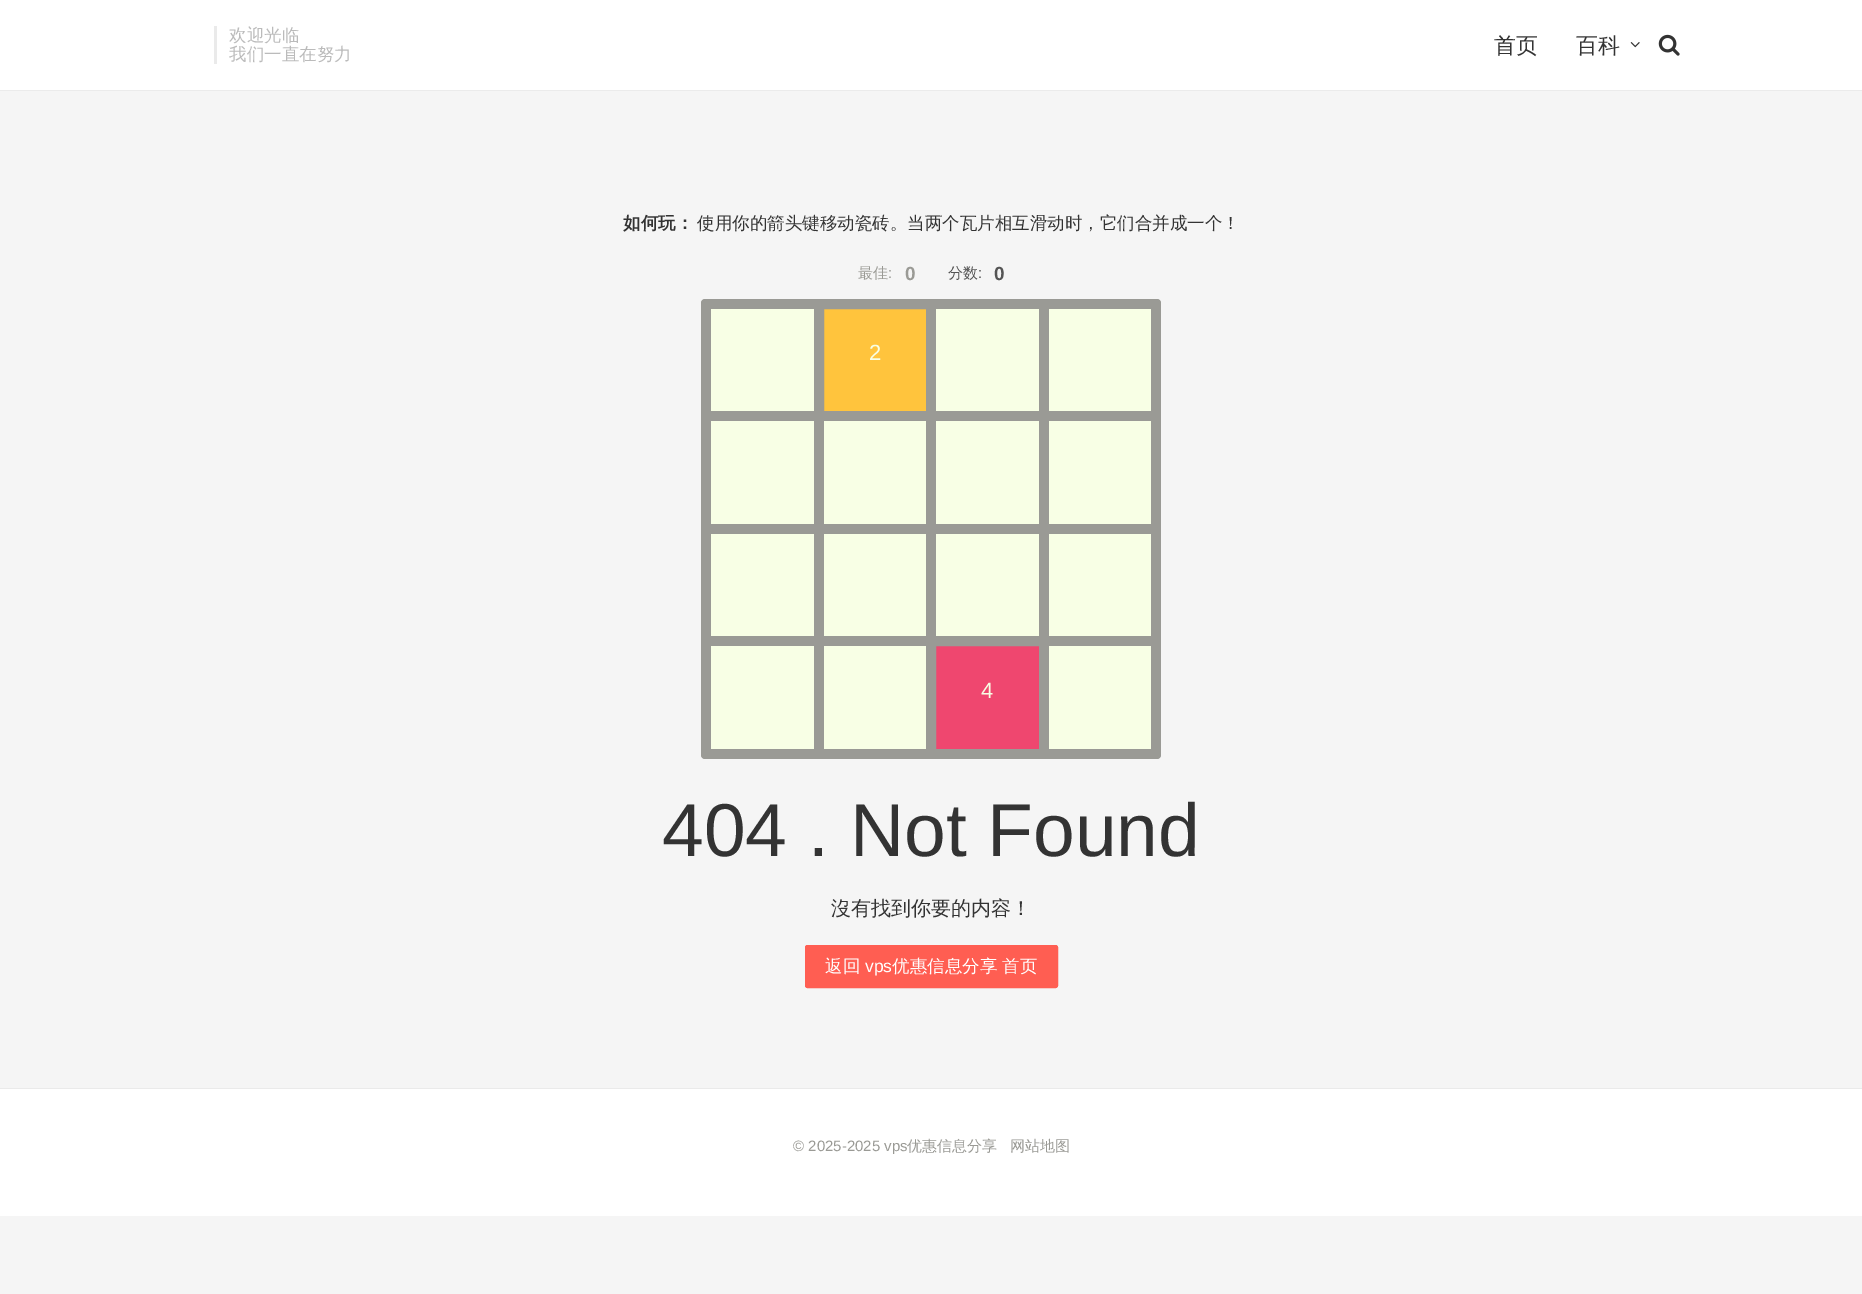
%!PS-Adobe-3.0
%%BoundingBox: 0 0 1862 1294
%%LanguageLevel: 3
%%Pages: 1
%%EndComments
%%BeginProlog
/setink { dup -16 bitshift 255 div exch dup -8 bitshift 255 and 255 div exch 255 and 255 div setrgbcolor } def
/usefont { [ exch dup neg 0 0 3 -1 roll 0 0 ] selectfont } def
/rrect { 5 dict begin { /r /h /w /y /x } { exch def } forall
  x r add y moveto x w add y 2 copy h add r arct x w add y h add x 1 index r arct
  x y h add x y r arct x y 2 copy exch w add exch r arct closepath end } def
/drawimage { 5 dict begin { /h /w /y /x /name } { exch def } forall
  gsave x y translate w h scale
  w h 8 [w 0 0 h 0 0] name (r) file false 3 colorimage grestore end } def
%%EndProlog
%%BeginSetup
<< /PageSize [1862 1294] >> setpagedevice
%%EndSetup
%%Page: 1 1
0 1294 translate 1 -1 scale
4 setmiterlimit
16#F5F5F5 setink
0 0 1862 1294 rectfill
[
    [0 0 1862 90 16#FFFFFF]
    [0 90 1862 1 16#EBEBEB]
    [214 26 3 38 16#EAEAEA]
] { aload pop setink rectfill } forall
/WenQuanYiZenHei-Medium 17.5 usefont
16#BBBBBB setink
229 41 moveto (欢迎光临) show
229 60 moveto (我们一直在努力) show
/WenQuanYiZenHei-Medium 22 usefont
16#333333 setink
1494 53 moveto (首页) show
1576 53 moveto (百科) show
(img1.raw) 1630 42 10 6 drawimage
(img2.raw) 1658 34 22 22 drawimage
/WenQuanYiZenHei-Bold 17.5 usefont
623 229 moveto (如何玩：) show
/WenQuanYiZenHei-Medium 17.5 usefont
697 229 moveto (使用你的箭头键移动瓷砖。当两个瓦片相互滑动时，它们合并成一个！) show
/WenQuanYiZenHei-Medium 15 usefont
16#9A9A95 setink
858 278 moveto (最佳) show
/LiberationSans-Regular 15 usefont
888 278 moveto (:) show
/LiberationSans-Bold 19 usefont
905 280 moveto (0) show
/WenQuanYiZenHei-Medium 15 usefont
16#555555 setink
948 278 moveto (分数) show
/LiberationSans-Regular 15 usefont
978 278 moveto (:) show
/LiberationSans-Bold 19 usefont
994 280 moveto (0) show
16#9A9A95 setink
701 299 460 460 4 rrect fill
16#F8FFE5 setink
711 309 103 102 rectfill
16#FFC43D setink
821.5 306.5 107 107 1.5 rrect gsave fill grestore
16#9A9A95 setink
5 setlinewidth
stroke
/LiberationSans-Regular 22 usefont
16#F8FFE5 setink
869 360 moveto (2) show
[
    [936 309 103 102 16#F8FFE5]
    [1049 309 102 102 16#F8FFE5]
    [711 421 103 103 16#F8FFE5]
    [824 421 102 103 16#F8FFE5]
    [936 421 103 103 16#F8FFE5]
    [1049 421 102 103 16#F8FFE5]
    [711 534 103 102 16#F8FFE5]
    [824 534 102 102 16#F8FFE5]
    [936 534 103 102 16#F8FFE5]
    [1049 534 102 102 16#F8FFE5]
    [711 646 103 103 16#F8FFE5]
    [824 646 102 103 16#F8FFE5]
] { aload pop setink rectfill } forall
16#EF476F setink
933.5 643.5 108 108 1.5 rrect gsave fill grestore
16#9A9A95 setink
stroke
16#F8FFE5 setink
981 698 moveto (4) show
1049 646 102 103 rectfill
/LiberationSans-Regular 75 usefont
16#333333 setink
662 856 moveto (404 . Not Found) show
/WenQuanYiZenHei-Medium 20 usefont
831 915 moveto (沒有找到你要的内容！) show
16#FF5E52 setink
805.5 945.5 252 42 2 rrect gsave fill grestore
1 setlinewidth
stroke
/WenQuanYiZenHei-Medium 17.5 usefont
16#FFFFFF setink
825 972 moveto (返回) show
/LiberationSans-Regular 17.5 usefont
865 972 moveto (vps) show
/WenQuanYiZenHei-Medium 17.5 usefont
892 972 moveto (优惠信息分享 首页) show
0 1089 1862 127 rectfill
16#EAEAEA setink
0 1088 1862 1 rectfill
/LiberationSans-Regular 15 usefont
16#9A9A95 setink
793 1151 moveto (© 2025-2025 vps) show
/WenQuanYiZenHei-Medium 15 usefont
907 1151 moveto (优惠信息分享) show
1010 1151 moveto (网站地图) show
showpage
%%EOF
